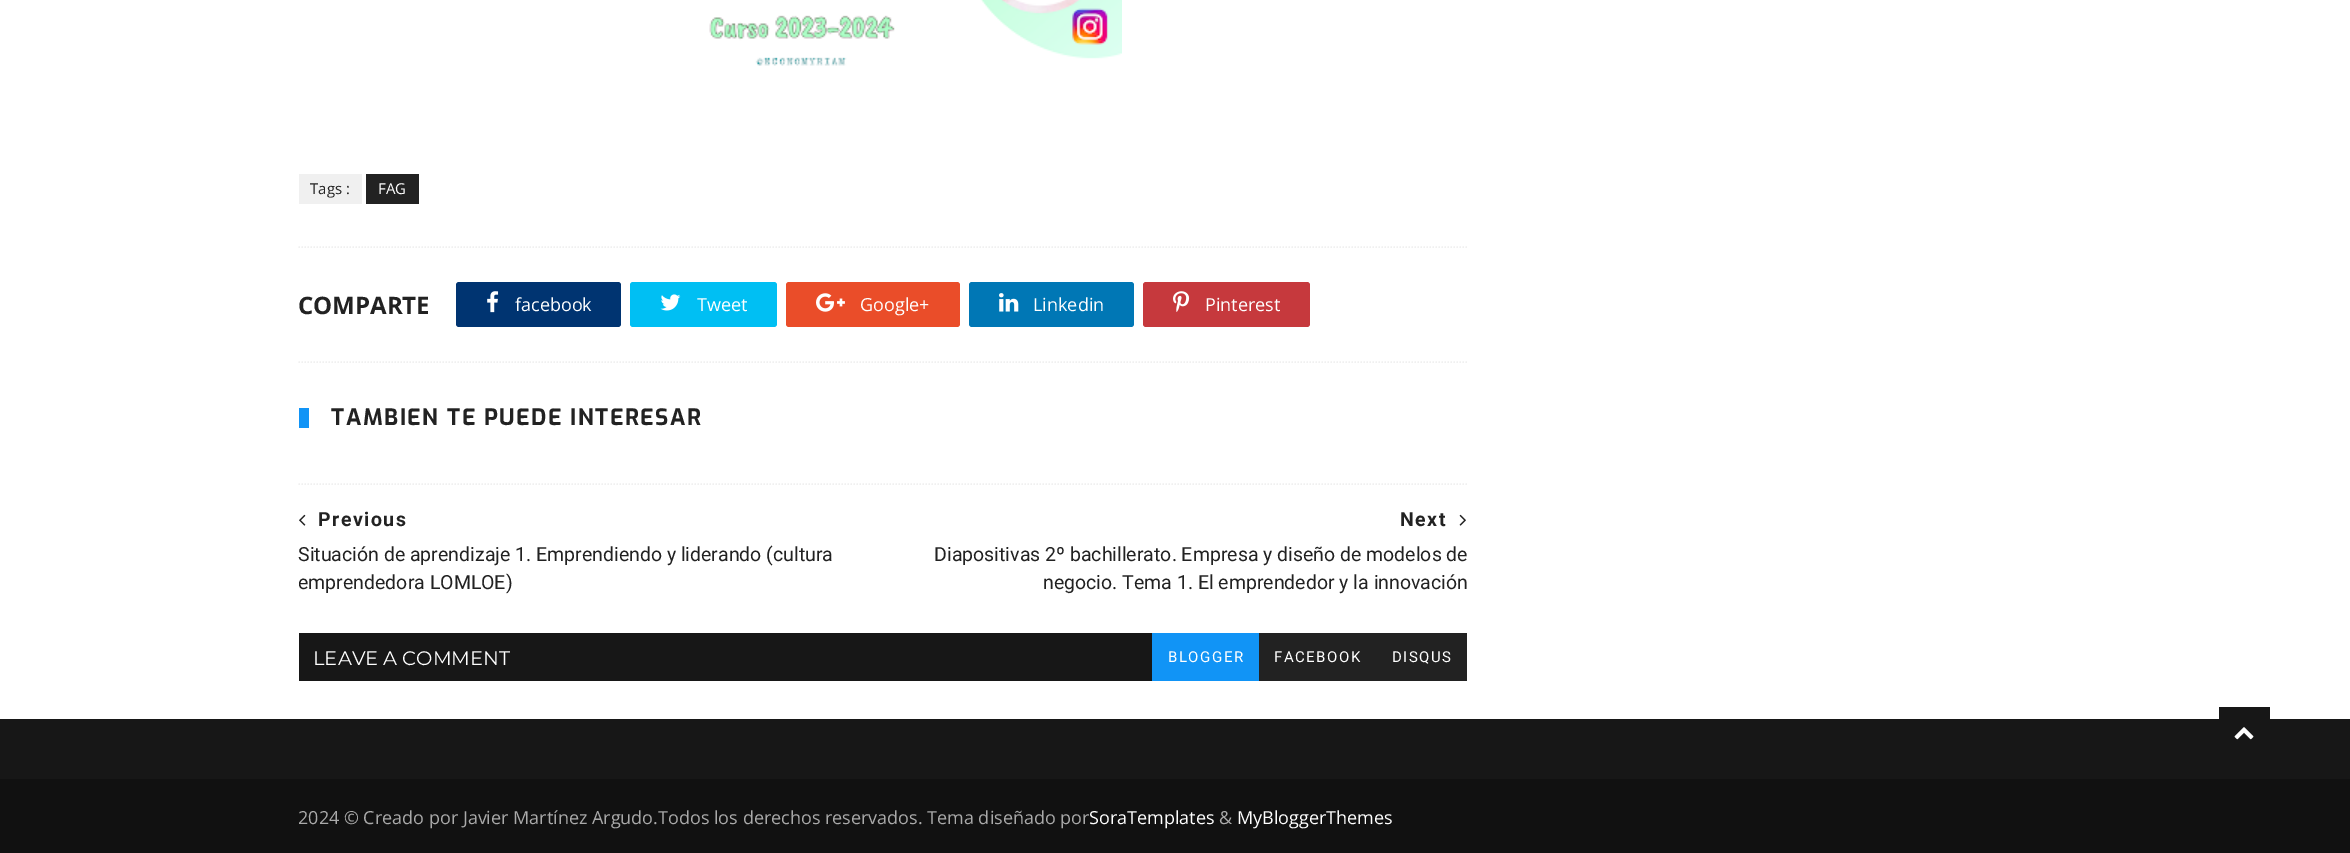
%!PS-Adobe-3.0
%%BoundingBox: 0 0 2350 853
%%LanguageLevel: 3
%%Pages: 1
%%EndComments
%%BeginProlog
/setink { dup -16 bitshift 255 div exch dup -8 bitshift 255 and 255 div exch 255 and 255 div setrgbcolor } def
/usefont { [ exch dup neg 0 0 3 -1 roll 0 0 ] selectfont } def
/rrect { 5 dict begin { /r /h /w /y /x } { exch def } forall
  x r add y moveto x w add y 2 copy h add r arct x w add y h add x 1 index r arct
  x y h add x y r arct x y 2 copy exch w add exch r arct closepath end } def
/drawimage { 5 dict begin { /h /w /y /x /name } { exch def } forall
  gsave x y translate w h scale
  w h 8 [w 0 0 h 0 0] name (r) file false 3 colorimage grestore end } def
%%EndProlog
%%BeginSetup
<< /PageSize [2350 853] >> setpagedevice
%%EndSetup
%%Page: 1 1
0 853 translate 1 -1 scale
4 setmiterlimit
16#FFFFFF setink
0 0 2350 853 rectfill
(img1.raw) 709 0 413 66 drawimage
16#F0F0F0 setink
299 174 63 30 rectfill
/OpenSans-Regular 15 usefont
16#222222 setink
310 194 moveto (Tags :) show
366 174 53 30 rectfill
16#FFFFFF setink
378 194 moveto (FAG) show
16#F0F0F0 setink
1.5 setlinewidth
[1.5 1.5] 0 setdash
298.5 247 moveto 1467 247 lineto stroke
298.5 362 moveto 1467 362 lineto stroke
/OpenSans-Bold 24 usefont
16#222222 setink
298 314 moveto (COMPARTE) show
16#003471 setink
456 282 165 45 3 rrect fill
(img2.raw) 487 291 12 22 drawimage
/OpenSans-Regular 18 usefont
16#FFFFFF setink
515 311 moveto (facebook) show
16#00BFF3 setink
630 282 147 45 3 rrect fill
(img3.raw) 660 294 21 17 drawimage
16#FFFFFF setink
697 311 moveto (Tweet) show
16#EA4D29 setink
786 282 174 45 3 rrect fill
(img4.raw) 816 293 29 19 drawimage
16#FFFFFF setink
860 311 moveto (Google+) show
16#0077B5 setink
969 282 165 45 3 rrect fill
(img5.raw) 999 293 20 19 drawimage
16#FFFFFF setink
1033 311 moveto (Linkedin) show
16#C6393D setink
1143 282 167 45 3 rrect fill
(img6.raw) 1173 291 17 21 drawimage
16#FFFFFF setink
1205 311 moveto (Pinterest) show
16#1194F6 setink
299 408 10 20 rectfill
gsave
309 408 393 20 rectclip
/Exo-Bold 22.5 usefont
16#222222 setink
331 425 moveto 1.5 0 (TAMBIÉN TE PUEDE INTERESAR) ashow
grestore
16#F0F0F0 setink
298.5 484 moveto 1467 484 lineto stroke
(img7.raw) 299 514 7 12 drawimage
/Roboto-Bold 19.5 usefont
16#222222 setink
318 526 moveto 1.5 0 (Previous) ashow
/Roboto-Regular 19.5 usefont
298 561 moveto (Situación de aprendizaje 1. Emprendiendo y liderando \(cultura) show
gsave
299 485 1168 111 rectclip
298 589 moveto (emprendedora LOMLOE\)) show
grestore
/Roboto-Bold 19.5 usefont
1400 526 moveto 1.5 0 (Next) ashow
(img8.raw) 1459 514 7 12 drawimage
/Roboto-Regular 19.5 usefont
934 561 moveto (Diapositivas 2º bachillerato. Empresa y diseño de modelos de) show
1043 589 moveto (negocio. Tema 1. El emprendedor y la innovación) show
16#171717 setink
299 633 853 48 rectfill
/Montserrat-Regular 19.5 usefont
16#FFFFFF setink
313 665 moveto (LEAVE A COMMENT) show
16#1194F6 setink
1152 633 107 48 rectfill
/Roboto-Regular 15 usefont
16#FFFFFF setink
1168 662 moveto 1.5 0 (BLOGGER) ashow
16#222222 setink
1259 633 208 48 rectfill
16#FFFFFF setink
1274 662 moveto 1.5 0 (FACEBOOK) ashow
1392 662 moveto 1.5 0 (DISQUS) ashow
16#171717 setink
2219 707 51 12 rectfill
0 719 2350 60 rectfill
(img9.raw) 2234 727 20 13 drawimage
16#111111 setink
0 779 2350 74 rectfill
/OpenSans-Regular 18 usefont
16#AAAAAA setink
298 824 moveto (2024 © Creado por Javier Martínez Argudo.Todos los derechos reservados. Tema diseñado por) show
16#FFFFFF setink
1089 824 moveto (SoraTemplates) show
16#AAAAAA setink
1219 824 moveto (&) show
16#FFFFFF setink
1237 824 moveto (MyBloggerThemes) show
showpage
%%EOF
